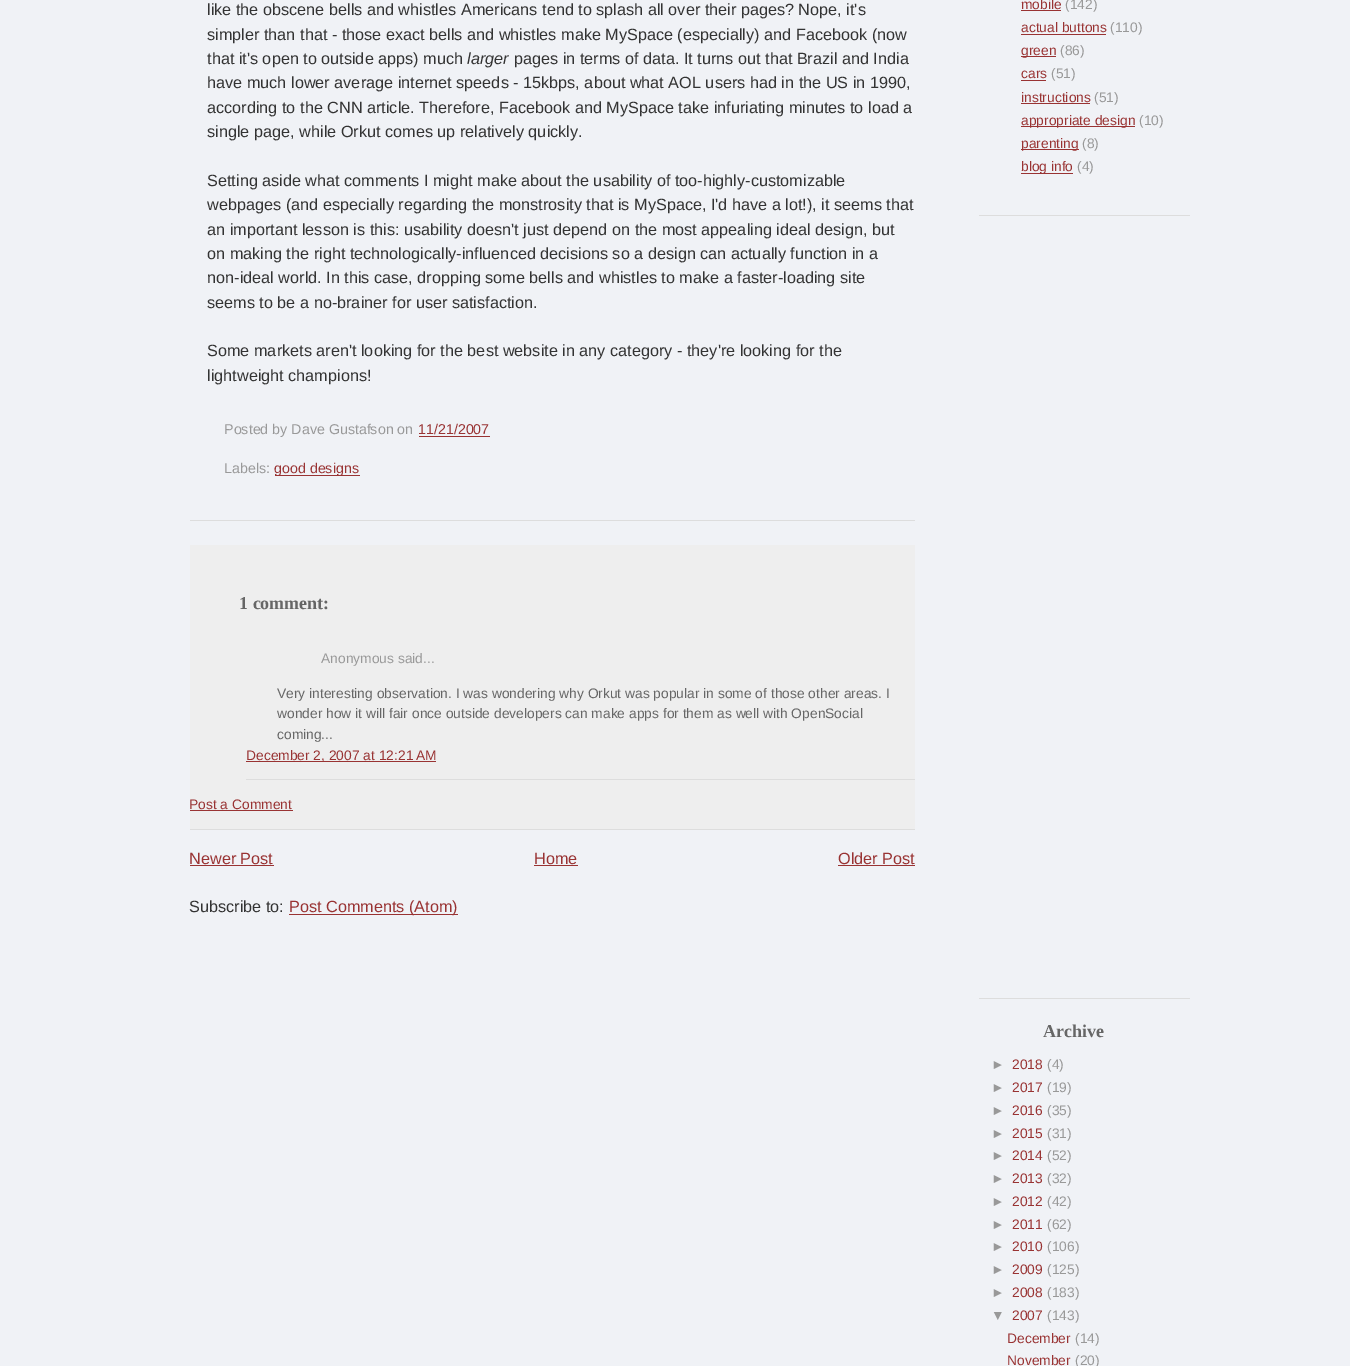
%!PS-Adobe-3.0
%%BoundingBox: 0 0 1350 1366
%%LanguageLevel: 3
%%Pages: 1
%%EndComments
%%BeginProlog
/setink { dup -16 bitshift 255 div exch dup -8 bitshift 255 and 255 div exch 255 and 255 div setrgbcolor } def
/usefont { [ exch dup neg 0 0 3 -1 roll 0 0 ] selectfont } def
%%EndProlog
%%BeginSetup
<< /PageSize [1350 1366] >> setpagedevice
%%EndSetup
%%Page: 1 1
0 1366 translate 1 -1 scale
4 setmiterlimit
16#F0F2F6 setink
0 0 1350 1366 rectfill
16#DDDDDD setink
190 520 725 1 rectfill
/LiberationSans-Regular 16.25 usefont
16#333333 setink
[
    [(like the obscene bells and whistles Americans tend to splash all over their pages? Nope, it's) 207 15]
    [(simpler than that - those exact bells and whistles make MySpace \(especially\) and Facebook \(now) 207 40]
    [(that it's open to outside apps\) much) 207 64]
] { aload pop moveto show } forall
/LiberationSans-Italic 16.25 usefont
467 64 moveto (larger) show
/LiberationSans-Regular 16.25 usefont
[
    [(pages in terms of data. It turns out that Brazil and India) 514 64]
    [(have much lower average internet speeds - 15kbps, about what AOL users had in the US in 1990,) 207 88]
    [(according to the CNN article. Therefore, Facebook and MySpace take infuriating minutes to load a) 207 113]
    [(single page, while Orkut comes up relatively quickly.) 207 137]
    [(Setting aside what comments I might make about the usability of too-highly-customizable) 207 186]
    [(webpages \(and especially regarding the monstrosity that is MySpace, I'd have a lot!\), it seems that) 207 210]
    [(an important lesson is this: usability doesn't just depend on the most appealing ideal design, but) 207 235]
    [(on making the right technologically-influenced decisions so a design can actually function in a) 207 259]
    [(non-ideal world. In this case, dropping some bells and whistles to make a faster-loading site) 207 283]
    [(seems to be a no-brainer for user satisfaction.) 207 308]
    [(Some markets aren't looking for the best website in any category - they're looking for the) 207 356]
    [(lightweight champions!) 207 381]
] { aload pop moveto show } forall
/LiberationSans-Regular 14.25 usefont
16#999999 setink
224 434 moveto (Posted by Dave Gustafson on) show
16#993333 setink
418 434 moveto (11/21/2007) show
419 436 71 1 rectfill
16#999999 setink
224 473 moveto (Labels:) show
16#993333 setink
275 475 85 1 rectfill
274 473 moveto (good designs) show
16#EEEEEE setink
190 545 725 284 rectfill
/LiberationSerif-Bold 18 usefont
16#666666 setink
239 609 moveto (1 comment:) show
/LiberationSans-Regular 13.8 usefont
16#999999 setink
321 663 moveto (Anonymous said...) show
16#666666 setink
[
    [(Very interesting observation. I was wondering why Orkut was popular in some of those other areas. I) 277 698]
    [(wonder how it will fair once outside developers can make apps for them as well with OpenSocial) 277 718]
    [(coming...) 277 739]
] { aload pop moveto show } forall
16#DDDDDD setink
246 779 669 1 rectfill
16#993333 setink
246 761 190 1 rectfill
246 760 moveto (December 2, 2007 at 12:21 AM) show
16#DDDDDD setink
190 829 725 1 rectfill
16#993333 setink
189 809 moveto (Post a Comment) show
190 810 103 1 rectfill
/LiberationSans-Regular 16.25 usefont
189 864 moveto (Newer Post) show
190 865 84 1 rectfill
534 864 moveto (Home) show
534 865 44 1 rectfill
838 864 moveto (Older Post) show
838 865 77 1 rectfill
16#333333 setink
189 912 moveto (Subscribe to:) show
16#993333 setink
289 914 169 1 rectfill
289 912 moveto (Post Comments \(Atom\)) show
16#DDDDDD setink
979 215 211 1 rectfill
/LiberationSans-Regular 13.8 usefont
16#993333 setink
1021 9 moveto (mobile) show
1021 10 40 1 rectfill
16#999999 setink
1065 9 moveto (\(142\)) show
16#993333 setink
1021 32 moveto (actual buttons) show
1021 34 85 1 rectfill
16#999999 setink
1110 32 moveto (\(110\)) show
16#993333 setink
1021 56 35 1 rectfill
1021 55 moveto (green) show
16#999999 setink
1060 55 moveto (\(86\)) show
16#993333 setink
1021 78 moveto (cars) show
1021 80 25 1 rectfill
16#999999 setink
1051 78 moveto (\(51\)) show
16#993333 setink
1021 102 moveto (instructions) show
1021 103 69 1 rectfill
16#999999 setink
1094 102 moveto (\(51\)) show
16#993333 setink
1021 126 114 1 rectfill
1021 125 moveto (appropriate design) show
16#999999 setink
1139 125 moveto (\(10\)) show
16#993333 setink
1021 149 58 1 rectfill
1021 148 moveto (parenting) show
16#999999 setink
1082 148 moveto (\(8\)) show
16#993333 setink
1021 173 52 1 rectfill
1021 171 moveto (blog info) show
16#999999 setink
1077 171 moveto (\(4\)) show
16#DDDDDD setink
979 998 211 1 rectfill
/LiberationSerif-Bold 18 usefont
16#666666 setink
1043 1037 moveto (Archive) show
/LiberationSans-Regular 13.8 usefont
16#999999 setink
991 1069 moveto (►) show
16#993333 setink
1012 1069 moveto (2018) show
16#999999 setink
1047 1069 moveto (\(4\)) show
991 1092 moveto (►) show
16#993333 setink
1012 1092 moveto (2017) show
16#999999 setink
1047 1092 moveto (\(19\)) show
991 1115 moveto (►) show
16#993333 setink
1012 1115 moveto (2016) show
16#999999 setink
1047 1115 moveto (\(35\)) show
991 1138 moveto (►) show
16#993333 setink
1012 1138 moveto (2015) show
16#999999 setink
1047 1138 moveto (\(31\)) show
991 1160 moveto (►) show
16#993333 setink
1012 1160 moveto (2014) show
16#999999 setink
1047 1160 moveto (\(52\)) show
991 1183 moveto (►) show
16#993333 setink
1012 1183 moveto (2013) show
16#999999 setink
1047 1183 moveto (\(32\)) show
991 1206 moveto (►) show
16#993333 setink
1012 1206 moveto (2012) show
16#999999 setink
1047 1206 moveto (\(42\)) show
991 1229 moveto (►) show
16#993333 setink
1012 1229 moveto (2011) show
16#999999 setink
1047 1229 moveto (\(62\)) show
991 1251 moveto (►) show
16#993333 setink
1012 1251 moveto (2010) show
16#999999 setink
1047 1251 moveto (\(106\)) show
991 1274 moveto (►) show
16#993333 setink
1012 1274 moveto (2009) show
16#999999 setink
1047 1274 moveto (\(125\)) show
991 1297 moveto (►) show
16#993333 setink
1012 1297 moveto (2008) show
16#999999 setink
1047 1297 moveto (\(183\)) show
991 1320 moveto (▼) show
16#993333 setink
1012 1320 moveto (2007) show
16#999999 setink
1047 1320 moveto (\(143\)) show
16#993333 setink
1007 1343 moveto (December) show
16#999999 setink
1075 1343 moveto (\(14\)) show
16#993333 setink
1007 1365 moveto (November) show
16#999999 setink
1075 1365 moveto (\(20\)) show
showpage
%%EOF
